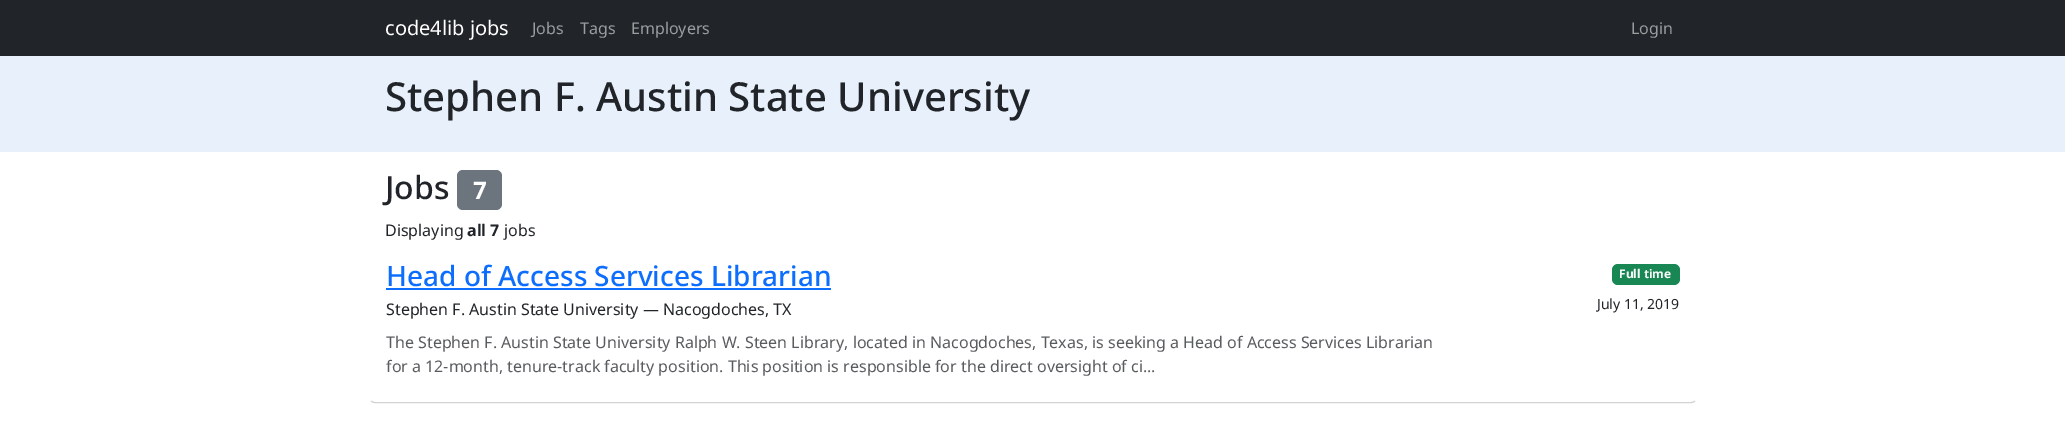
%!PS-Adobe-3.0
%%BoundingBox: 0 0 2065 431
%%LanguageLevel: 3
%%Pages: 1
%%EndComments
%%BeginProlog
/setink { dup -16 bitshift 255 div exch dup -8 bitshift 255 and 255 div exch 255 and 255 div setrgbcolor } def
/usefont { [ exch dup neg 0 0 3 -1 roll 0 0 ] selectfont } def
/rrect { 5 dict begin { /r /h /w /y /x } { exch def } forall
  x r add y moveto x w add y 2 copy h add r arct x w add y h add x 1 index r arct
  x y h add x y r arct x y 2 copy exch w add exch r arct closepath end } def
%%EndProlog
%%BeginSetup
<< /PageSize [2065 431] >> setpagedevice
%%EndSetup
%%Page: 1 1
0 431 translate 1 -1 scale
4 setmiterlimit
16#FFFFFF setink
0 0 2065 431 rectfill
16#212529 setink
0 0 2065 56 rectfill
/NotoSans-Regular 20 usefont
16#FFFFFF setink
385 35 moveto (code4lib jobs) show
/NotoSans-Regular 16 usefont
16#9B9D9F setink
[
    [(Jobs) 532 34]
    [(Tags) 580 34]
    [(Employers) 631 34]
    [(Login) 1631 34]
] { aload pop moveto show } forall
16#E8F0FB setink
0 56 2065 96 rectfill
/NotoSans-Medium 40 usefont
16#212529 setink
385 111 moveto (Stephen F. Austin State University) show
/NotoSans-Medium 32 usefont
385 199 moveto (Jobs) show
16#6C757D setink
457 170 45 40 6 rrect fill
/NotoSans-Bold 24 usefont
16#FFFFFF setink
473 199 moveto (7) show
/NotoSans-Regular 16 usefont
16#212529 setink
385 236 moveto (Displaying) show
/NotoSans-Bold 16 usefont
467 236 moveto (all 7) show
/NotoSans-Regular 16 usefont
504 236 moveto (jobs) show
16#D2D2D2 setink
1695 401 moveto 1694 402 1692.5 402.5 1691 402.5 curveto 375 402.5 lineto 373.5 402.5 372 402 371 401 curveto stroke
/NotoSans-Medium 28 usefont
16#0D6EFD setink
386 286 moveto (Head of Access Services Librarian) show
386 288 445 2 rectfill
/NotoSans-Regular 16 usefont
16#212529 setink
386 315 moveto (Stephen F. Austin State University — Nacogdoches, TX) show
16#198754 setink
1612 264 68 21 6 rrect fill
/NotoSans-Bold 12 usefont
16#F8F9FA setink
1619 278 moveto (Full time) show
/NotoSans-Regular 14 usefont
16#212529 setink
1597 309 moveto (July 11, 2019) show
/NotoSans-Regular 16 usefont
16#595C5F setink
386 348 moveto (The Stephen F. Austin State University Ralph W. Steen Library, located in Nacogdoches, Texas, is seeking a Head of Access Services Librarian) show
386 372 moveto (for a 12-month, tenure-track faculty position. This position is responsible for the direct oversight of ci...) show
showpage
%%EOF
